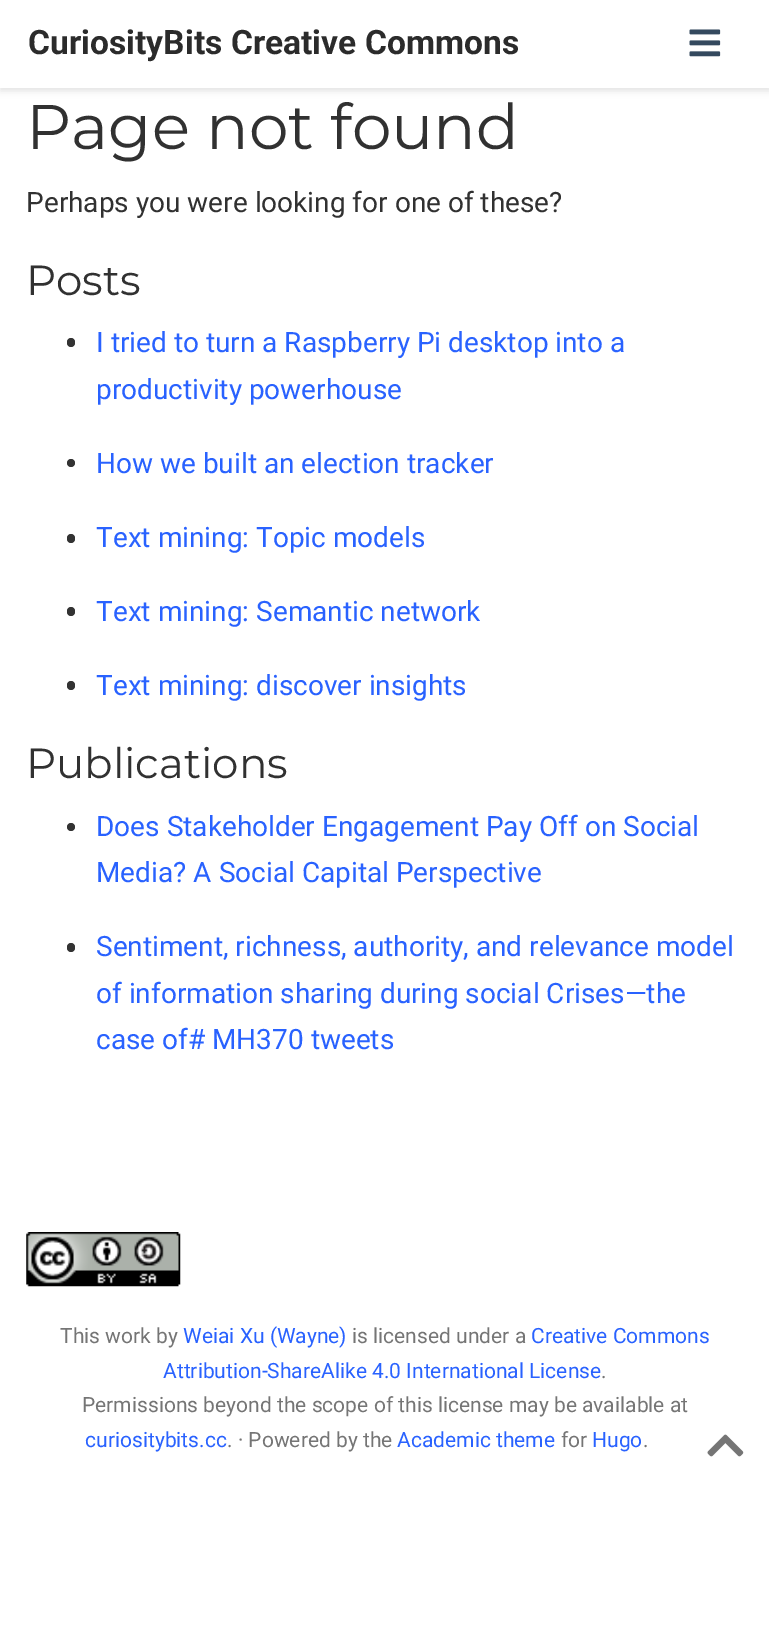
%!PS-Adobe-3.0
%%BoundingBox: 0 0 769 1644
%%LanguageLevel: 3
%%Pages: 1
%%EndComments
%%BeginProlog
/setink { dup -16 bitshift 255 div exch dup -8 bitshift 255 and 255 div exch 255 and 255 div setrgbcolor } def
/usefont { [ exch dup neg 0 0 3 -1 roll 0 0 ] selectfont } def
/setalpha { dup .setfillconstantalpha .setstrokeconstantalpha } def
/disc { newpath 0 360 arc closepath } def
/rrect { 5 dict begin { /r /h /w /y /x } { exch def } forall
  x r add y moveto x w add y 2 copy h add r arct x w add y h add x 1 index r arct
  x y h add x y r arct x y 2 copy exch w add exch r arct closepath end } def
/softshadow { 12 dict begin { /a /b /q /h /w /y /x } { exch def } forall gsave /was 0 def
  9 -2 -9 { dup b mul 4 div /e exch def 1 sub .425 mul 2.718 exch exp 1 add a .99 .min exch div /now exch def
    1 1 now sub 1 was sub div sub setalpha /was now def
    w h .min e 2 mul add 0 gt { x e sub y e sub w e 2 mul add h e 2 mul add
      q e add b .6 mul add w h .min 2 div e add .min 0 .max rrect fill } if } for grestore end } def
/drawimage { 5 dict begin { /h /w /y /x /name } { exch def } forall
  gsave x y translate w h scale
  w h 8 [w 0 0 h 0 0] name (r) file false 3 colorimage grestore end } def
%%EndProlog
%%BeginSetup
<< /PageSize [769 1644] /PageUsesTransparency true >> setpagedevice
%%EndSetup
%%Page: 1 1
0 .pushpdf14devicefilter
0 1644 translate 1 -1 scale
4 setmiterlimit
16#FFFFFF setink
0 0 769 1644 rectfill
16#000000 setink
0 4 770 87 0 3.5 0.11 softshadow
16#FFFFFF setink
0 0 769 88 rectfill
/Roboto-Bold 33.6 usefont
16#2B2B2B setink
28 54 moveto (CuriosityBits Creative Commons) show
(img1.raw) 689 29 32 28 drawimage
/Montserrat-Regular 63 usefont
16#313131 setink
26 149 moveto (Page not found) show
/Roboto-Regular 28 usefont
26 212 moveto (Perhaps you were looking for one of these?) show
/Montserrat-Regular 42 usefont
26 295 moveto (Posts) show
16#333333 setink
67 338 8 9 4 rrect fill
/Roboto-Regular 28 usefont
16#2962FF setink
96 352 moveto (I tried to turn a Raspberry Pi desktop into a) show
96 399 moveto (productivity powerhouse) show
16#333333 setink
71 463 4 disc fill
16#2962FF setink
96 473 moveto (How we built an election tracker) show
16#333333 setink
67 534 8 9 4 rrect fill
16#2962FF setink
96 547 moveto (Text mining: Topic models) show
16#333333 setink
67 607 8 9 4 rrect fill
16#2962FF setink
96 621 moveto (Text mining: Semantic network) show
16#333333 setink
67 681 8 9 4 rrect fill
16#2962FF setink
96 695 moveto (Text mining: discover insights) show
/Montserrat-Regular 42 usefont
16#313131 setink
26 778 moveto (Publications) show
16#333333 setink
71 827 4 disc fill
/Roboto-Regular 28 usefont
16#2962FF setink
96 836 moveto (Does Stakeholder Engagement Pay Off on Social) show
96 882 moveto (Media? A Social Capital Perspective) show
16#333333 setink
67 943 8 9 4 rrect fill
16#2962FF setink
[
    [(Sentiment, richness, authority, and relevance model) 96 956]
    [(of information sharing during social Crises—the) 96 1003]
    [(case of# MH370 tweets) 96 1049]
] { aload pop moveto show } forall
(img2.raw) 26 1232 155 55 drawimage
/Roboto-Regular 21 usefont
16#757575 setink
60 1343 moveto (This work by) show
16#2962FF setink
183 1343 moveto (Weiai Xu \(Wayne\)) show
16#757575 setink
352 1343 moveto (is licensed under a) show
16#2962FF setink
531 1343 moveto (Creative Commons) show
163 1378 moveto (Attribution-ShareAlike 4.0 International License) show
16#757575 setink
601 1378 moveto (.) show
82 1412 moveto (Permissions beyond the scope of this license may be available at) show
16#2962FF setink
85 1447 moveto (curiositybits.cc) show
16#757575 setink
227 1447 moveto (. · Powered by the) show
16#2962FF setink
397 1447 moveto (Academic theme) show
16#757575 setink
561 1447 moveto (for) show
16#2962FF setink
592 1447 moveto (Hugo) show
16#757575 setink
643 1447 moveto (.) show
(img3.raw) 707 1434 37 23 drawimage
.poppdf14devicefilter showpage
%%EOF
